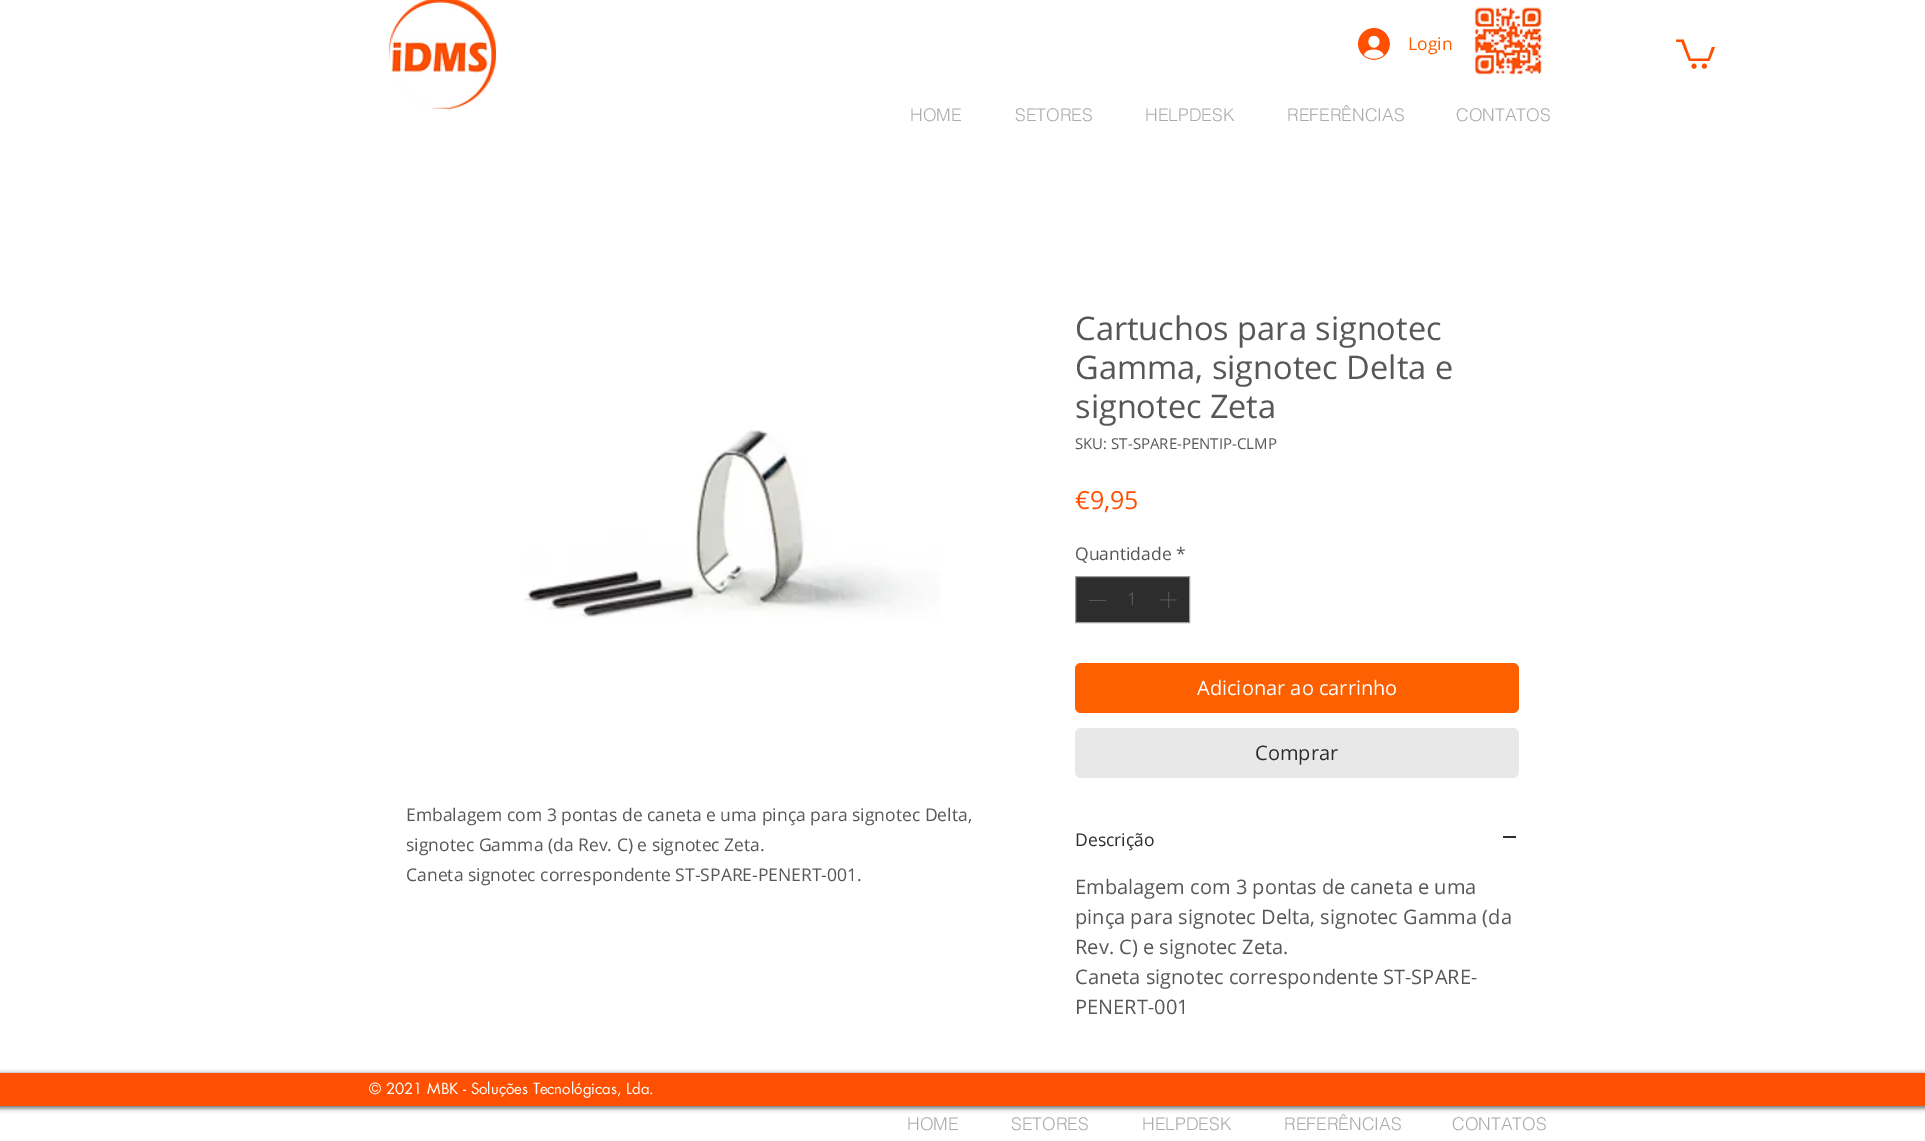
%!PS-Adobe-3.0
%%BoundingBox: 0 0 1925 1141
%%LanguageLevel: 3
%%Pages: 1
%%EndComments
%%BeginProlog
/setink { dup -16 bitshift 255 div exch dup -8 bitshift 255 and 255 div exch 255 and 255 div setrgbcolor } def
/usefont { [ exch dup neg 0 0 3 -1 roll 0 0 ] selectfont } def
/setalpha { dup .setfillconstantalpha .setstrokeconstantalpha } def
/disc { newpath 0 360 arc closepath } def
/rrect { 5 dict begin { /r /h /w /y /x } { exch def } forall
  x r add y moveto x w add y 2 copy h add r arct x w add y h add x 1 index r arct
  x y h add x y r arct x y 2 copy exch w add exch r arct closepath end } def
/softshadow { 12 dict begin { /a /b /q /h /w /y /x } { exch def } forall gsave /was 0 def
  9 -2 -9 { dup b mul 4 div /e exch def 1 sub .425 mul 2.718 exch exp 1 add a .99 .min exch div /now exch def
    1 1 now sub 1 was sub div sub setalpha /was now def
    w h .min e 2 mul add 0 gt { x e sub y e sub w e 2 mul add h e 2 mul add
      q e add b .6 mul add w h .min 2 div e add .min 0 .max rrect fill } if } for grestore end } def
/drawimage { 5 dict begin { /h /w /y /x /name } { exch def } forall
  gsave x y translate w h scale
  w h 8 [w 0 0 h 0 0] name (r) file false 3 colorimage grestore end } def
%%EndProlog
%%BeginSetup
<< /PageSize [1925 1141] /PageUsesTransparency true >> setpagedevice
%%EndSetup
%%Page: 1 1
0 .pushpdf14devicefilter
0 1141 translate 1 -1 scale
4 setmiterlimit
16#FFFFFF setink
0 0 1925 1141 rectfill
(img1.raw) 388 0 109 109 drawimage
(img2.raw) 1358 28 32 32 drawimage
/OpenSans-Regular 17.5 usefont
16#FC6000 setink
1408 50 moveto (Login) show
(img3.raw) 1474 7 68 68 drawimage
16#FE5000 setink
1715 47 moveto 1709.5 61 lineto 1689 61 lineto 1681.5 42 lineto 1676 42 lineto 1676.5 39.5 lineto 1683.5 39.5 lineto 1690.5 58.5 lineto 1708 58.5 lineto 1712 47 lineto fill
1704.4 66.2 2.5 disc fill
1694 66.2 2.5 disc fill
/helvetica-Light 17.5 usefont
16#ABABAB setink
[
    [(HOME) 910 121]
    [(SETORES) 1015 121]
    [(HELPDESK) 1145 121]
    [(REFERÊNCIAS) 1287 121]
    [(CONTATOS) 1456 121]
] { aload pop moveto show } forall
(img4.raw) 524 430 417 190 drawimage
/OpenSans-Regular 17.5 usefont
16#575757 setink
[
    [(Embalagem com 3 pontas de caneta e uma pinça para signotec Delta,) 406 821]
    [(signotec Gamma \(da Rev. C\) e signotec Zeta.) 406 851]
    [(Caneta signotec correspondente ST-SPARE-PENERT-001.) 406 881]
] { aload pop moveto show } forall
/OpenSans-Regular 32.5 usefont
[
    [(Cartuchos para signotec) 1075 340]
    [(Gamma, signotec Delta e) 1075 379]
    [(signotec Zeta) 1075 418]
] { aload pop moveto show } forall
/OpenSans-Regular 15 usefont
1075 449 moveto (SKU: ST-SPARE-PENTIP-CLMP) show
/OpenSans-Regular 25 usefont
16#FE5000 setink
1075 509 moveto (€9,95) show
/OpenSans-Regular 17.5 usefont
16#575757 setink
1075 560 moveto (Quantidade) show
1176 560 moveto (*) show
16#2D2D2D setink
1075.5 576.5 moveto 1189.5 576.5 lineto 1189.5 622.5 lineto 1075.5 622.5 lineto closepath gsave fill grestore
16#9D9D9D setink
stroke
16#575757 setink
1089 600 17 1 rectfill
1127 605 moveto (1) show
(img5.raw) 1160 591 17 18 drawimage
16#FC6000 setink
1075 663 444 50 6 rrect fill
/OpenSans-Regular 20 usefont
16#FFFFFF setink
1197 695 moveto (Adicionar ao carrinho) show
16#E8E8E8 setink
1075 728 444 50 6 rrect fill
16#2D2D2D setink
1255 760 moveto (Comprar) show
/OpenSans-Regular 17.5 usefont
1075 846 moveto (Descrição) show
1503 836 13 2 rectfill
/OpenSans-Regular 20 usefont
16#575757 setink
[
    [(Embalagem com 3 pontas de caneta e uma) 1075 894]
    [(pinça para signotec Delta, signotec Gamma \(da) 1075 924]
    [(Rev. C\) e signotec Zeta.) 1075 954]
    [(Caneta signotec correspondente ST-SPARE-) 1075 984]
    [(PENERT-001) 1075 1014]
] { aload pop moveto show } forall
16#000000 setink
-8 1074 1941 34 0 2.5 0.6 softshadow
16#FE5000 setink
0 1073 1925 33 rectfill
/futura-Regular 15 usefont
16#FFFFFF setink
369 1094 moveto (© 2021 MBK - Soluções Tecnológicas, Lda.) show
/helvetica-Light 17.5 usefont
16#ABABAB setink
[
    [(HOME) 907 1130]
    [(SETORES) 1011 1130]
    [(HELPDESK) 1142 1130]
    [(REFERÊNCIAS) 1284 1130]
    [(CONTATOS) 1452 1130]
] { aload pop moveto show } forall
.poppdf14devicefilter showpage
%%EOF
